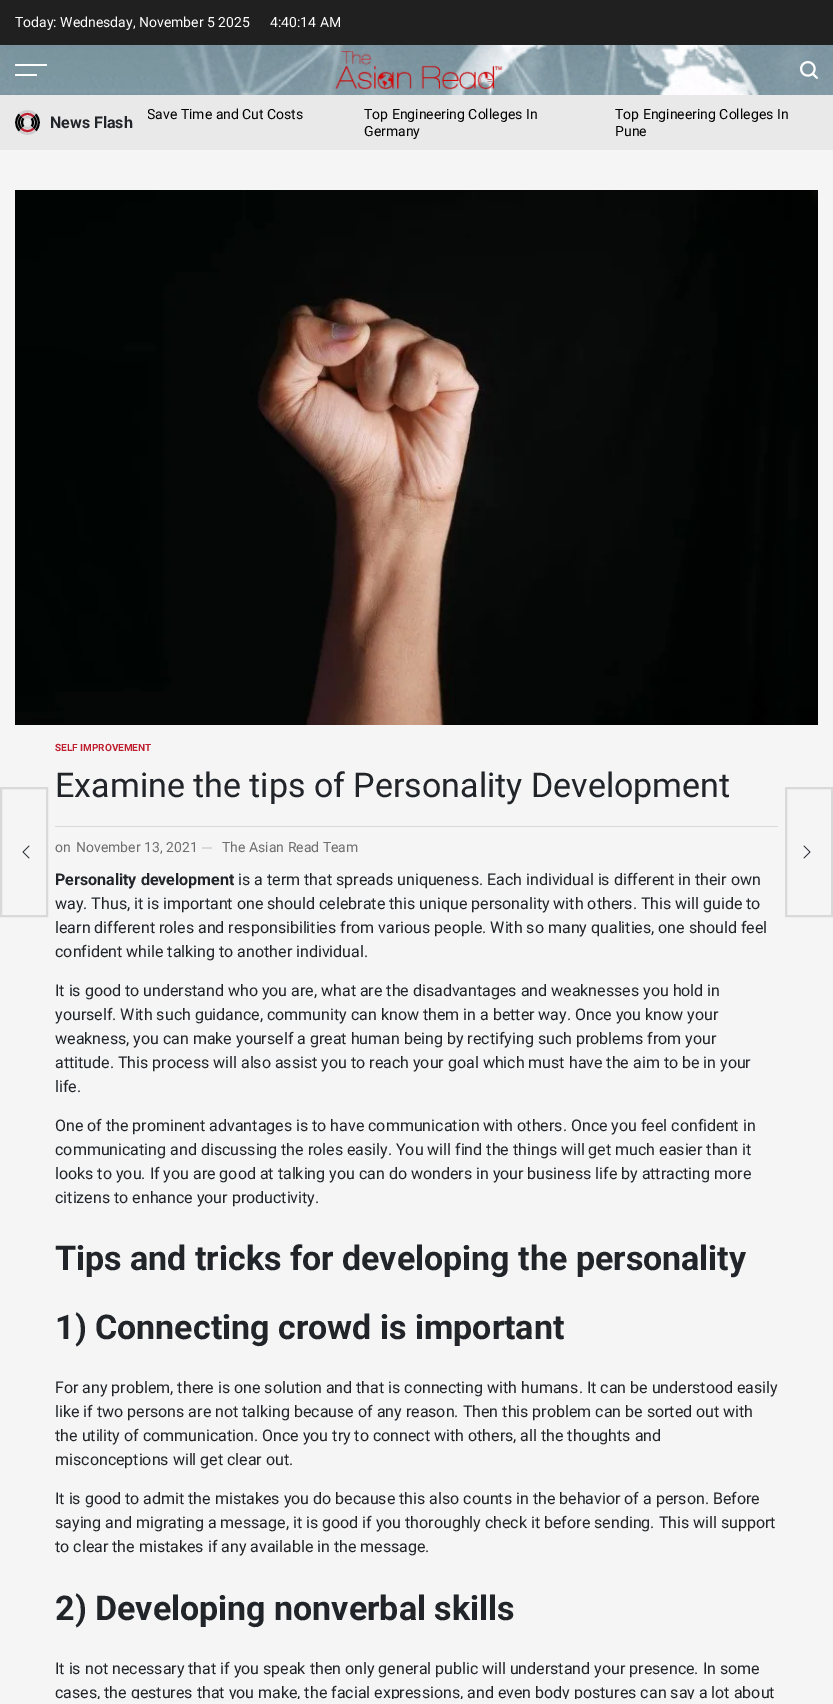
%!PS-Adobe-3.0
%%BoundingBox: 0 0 833 1704
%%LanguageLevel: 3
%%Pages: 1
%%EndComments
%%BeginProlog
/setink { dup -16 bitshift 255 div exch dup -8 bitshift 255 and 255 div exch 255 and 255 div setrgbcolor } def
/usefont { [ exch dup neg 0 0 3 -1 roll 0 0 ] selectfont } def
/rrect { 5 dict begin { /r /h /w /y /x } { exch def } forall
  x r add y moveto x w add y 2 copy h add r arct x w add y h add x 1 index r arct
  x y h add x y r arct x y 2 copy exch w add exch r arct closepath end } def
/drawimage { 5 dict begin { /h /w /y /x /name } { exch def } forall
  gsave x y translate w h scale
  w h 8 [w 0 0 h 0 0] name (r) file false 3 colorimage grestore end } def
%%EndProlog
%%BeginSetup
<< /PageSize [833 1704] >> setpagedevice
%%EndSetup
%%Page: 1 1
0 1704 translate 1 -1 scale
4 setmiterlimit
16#F5F5F5 setink
0 0 833 1704 rectfill
16#202020 setink
0 0 833 45 rectfill
/Roboto-Regular 14 usefont
16#FFFFFF setink
15 27 moveto (Today: Wednesday, November 5 2025) show
270 27 moveto (4:40:14 AM) show
(img1.raw) 0 45 833 50 drawimage
15 64 32 2 1 rrect fill
15 74 22 2 1 rrect fill
(img2.raw) 335 51 168 39 drawimage
(img3.raw) 800 61 18 18 drawimage
16#E9E9E9 setink
0 95 833 55 rectfill
16#CCCCCC setink
2 setlinewidth
19.5 114.5 moveto 24 110 31 110 35.5 114.5 curveto stroke
16#000000 setink
35.5 114.5 moveto 40 119 40 126 35.5 130.5 curveto stroke
16#CCCCCC setink
35.5 130.5 moveto 31 135 24 135 19.5 130.5 curveto stroke
16#000000 setink
19.5 130.5 moveto 15 126 15 119 19.5 114.5 curveto stroke
16#BF1E2E setink
21.5 116.5 moveto 25 113 30 113 33.5 116.5 curveto stroke
16#000000 setink
33.5 116.5 moveto 37 120 37 125 33.5 128.5 curveto stroke
16#BF1E2E setink
33.5 128.5 moveto 30 132 25 132 21.5 128.5 curveto stroke
16#000000 setink
21.5 128.5 moveto 18 125 18 120 21.5 116.5 curveto stroke
16#CCCCCC setink
23.5 118.5 moveto 25.5 116.5 29.5 116.5 31.5 118.5 curveto stroke
16#000000 setink
31.5 118.5 moveto 33.5 120.5 33.5 124.5 31.5 126.5 curveto stroke
16#CCCCCC setink
31.5 126.5 moveto 29.5 128.5 25.5 128.5 23.5 126.5 curveto stroke
16#000000 setink
23.5 126.5 moveto 21.5 124.5 21.5 120.5 23.5 118.5 curveto stroke
/Roboto-Bold 16 usefont
16#212529 setink
50 128 moveto (News Flash) show
gsave
148 103 670 40 rectclip
/Roboto-Regular 14 usefont
16#000000 setink
147 119 moveto (Save Time and Cut Costs) show
grestore
/Roboto-Regular 14 usefont
16#000000 setink
[
    [(Top Engineering Colleges In) 364 119]
    [(Germany) 364 136]
    [(Top Engineering Colleges In) 615 119]
    [(Pune) 615 136]
] { aload pop moveto show } forall
(img4.raw) 15 190 803 535 drawimage
/Roboto-Bold 10 usefont
16#BF1E2E setink
55 751 moveto (SELF IMPROVEMENT) show
/Roboto-Regular 34 usefont
16#212529 setink
55 797 moveto (Examine the tips of Personality Development) show
16#D9D9D9 setink
55 826 723 1 rectfill
/Roboto-Regular 14 usefont
16#6E6E6E setink
55 852 moveto (on) show
76 852 moveto (November 13, 2021) show
16#D9D9D9 setink
202 847 10 2 rectfill
16#6E6E6E setink
222 852 moveto (The Asian Read Team) show
/Roboto-Bold 16 usefont
16#212529 setink
55 885 moveto (Personality development) show
/Roboto-Regular 16 usefont
[
    [(is a term that spreads uniqueness. Each individual is different in their own) 238 885]
    [(way. Thus, it is important one should celebrate this unique personality with others. This will guide to) 55 909]
    [(learn different roles and responsibilities from various people. With so many qualities, one should feel) 55 933]
    [(confident while talking to another individual.) 55 957]
    [(It is good to understand who you are, what are the disadvantages and weaknesses you hold in) 55 996]
    [(yourself. With such guidance, community can know them in a better way. Once you know your) 55 1020]
    [(weakness, you can make yourself a great human being by rectifying such problems from your) 55 1044]
    [(attitude. This process will also assist you to reach your goal which must have the aim to be in your) 55 1068]
    [(life.) 55 1092]
    [(One of the prominent advantages is to have communication with others. Once you feel confident in) 55 1131]
    [(communicating and discussing the roles easily. You will find the things will get much easier than it) 55 1155]
    [(looks to you. If you are good at talking you can do wonders in your business life by attracting more) 55 1179]
    [(citizens to enhance your productivity.) 55 1203]
] { aload pop moveto show } forall
/Roboto-Bold 34 usefont
55 1270 moveto (Tips and tricks for developing the personality) show
55 1339 moveto (1\) Connecting crowd is important) show
/Roboto-Regular 16 usefont
[
    [(For any problem, there is one solution and that is connecting with humans. It can be understood easily) 55 1393]
    [(like if two persons are not talking because of any reason. Then this problem can be sorted out with) 55 1417]
    [(the utility of communication. Once you try to connect with others, all the thoughts and) 55 1441]
    [(misconceptions will get clear out.) 55 1465]
    [(It is good to admit the mistakes you do because this also counts in the behavior of a person. Before) 55 1504]
    [(saying and migrating a message, it is good if you thoroughly check it before sending. This will support) 55 1528]
    [(to clear the mistakes if any available in the message.) 55 1552]
] { aload pop moveto show } forall
/Roboto-Bold 34 usefont
55 1620 moveto (2\) Developing nonverbal skills) show
/Roboto-Regular 16 usefont
55 1674 moveto (It is not necessary that if you speak then only general public will understand your presence. In some) show
55 1698 moveto (cases, the gestures that you make, the facial expressions, and even body postures can say a lot about) show
16#D9D9D9 setink
1 788 46 128 rectstroke
(img5.raw) 22 845 8 14 drawimage
786 788 46 128 rectstroke
(img6.raw) 803 845 8 14 drawimage
16#F3F3F3 setink
97 1699 595 3 rectfill
showpage
%%EOF
